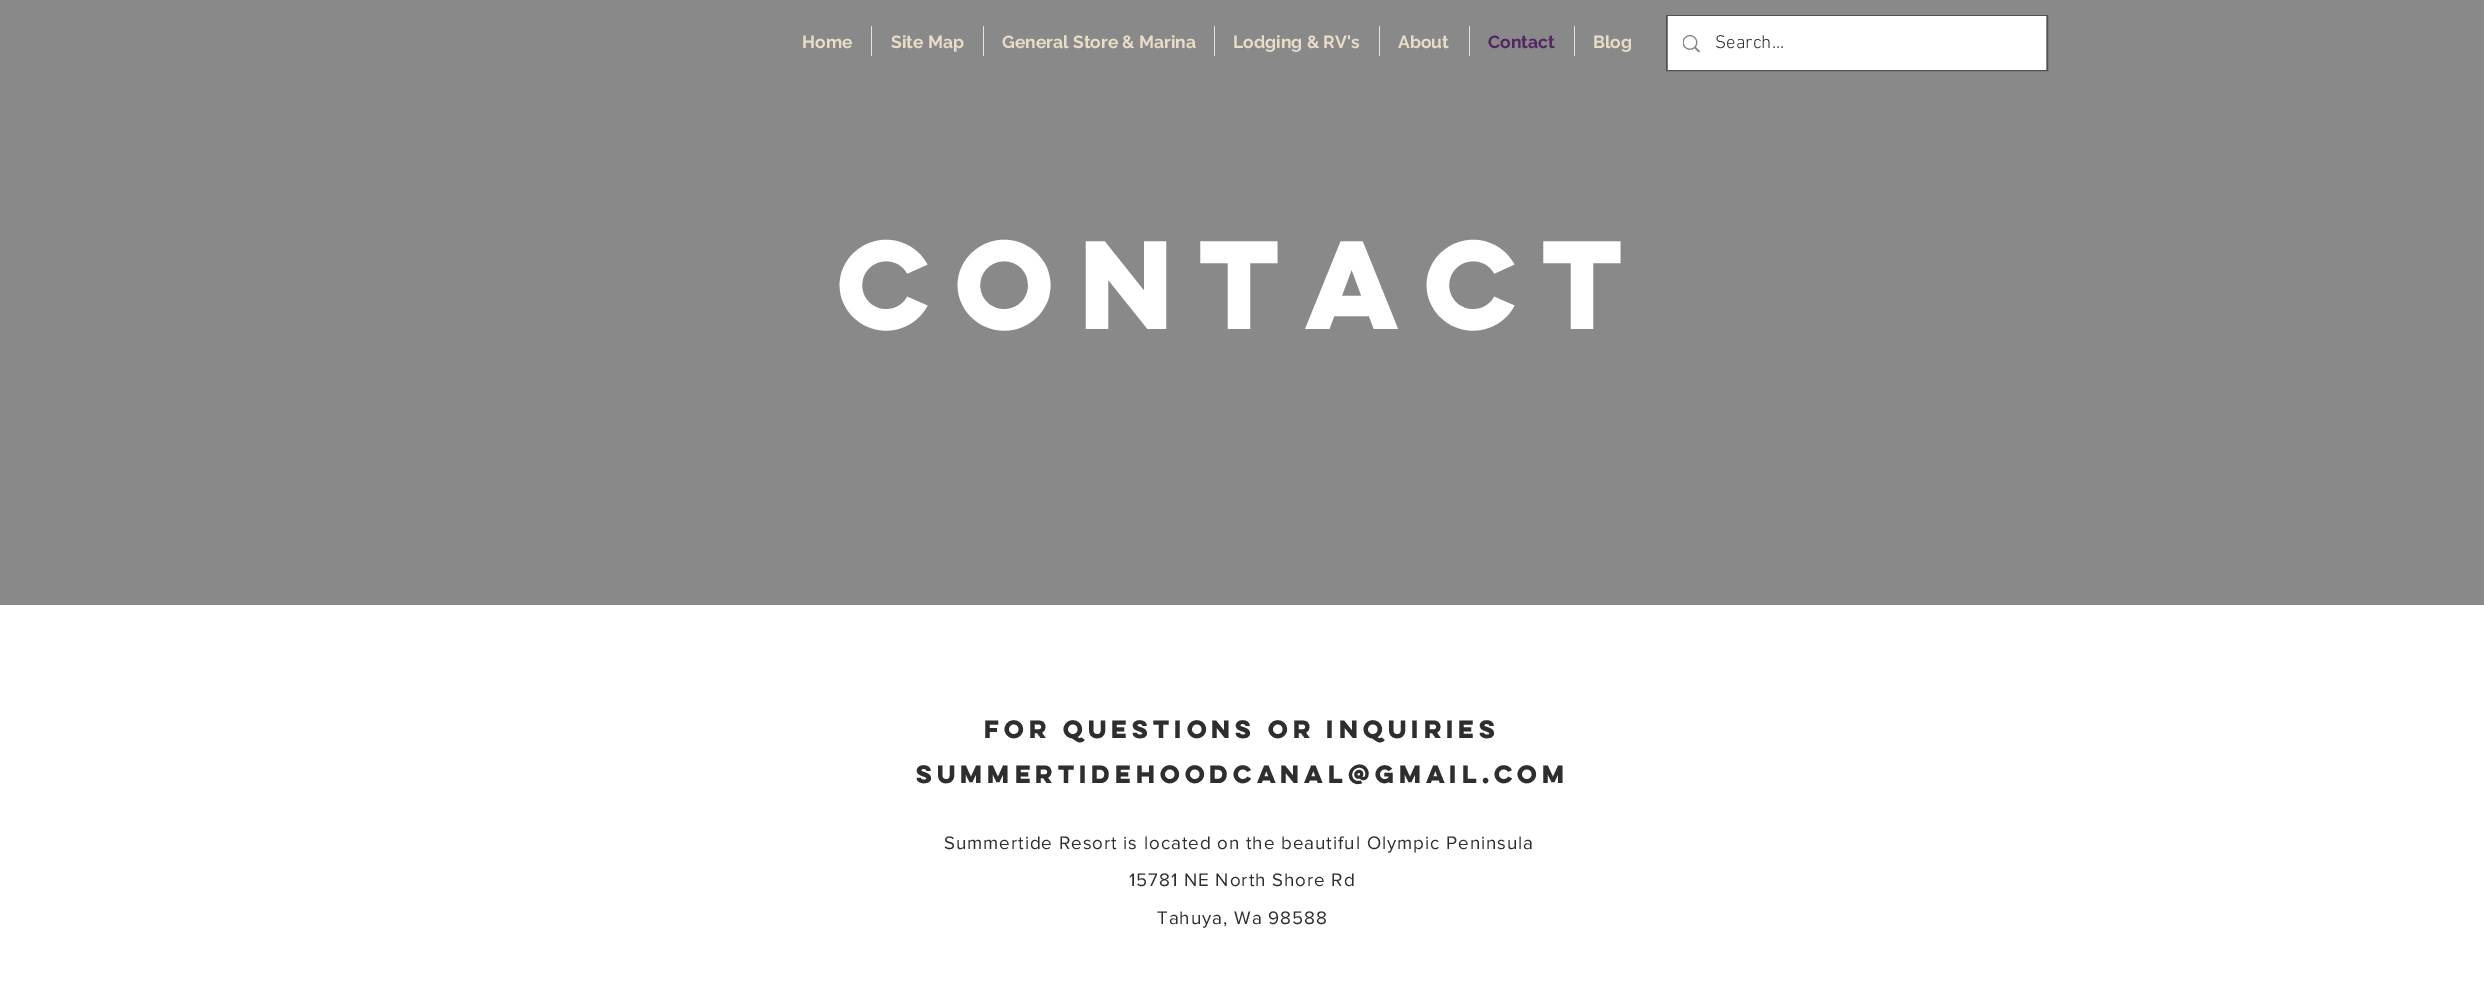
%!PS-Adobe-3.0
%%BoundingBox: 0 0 2484 981
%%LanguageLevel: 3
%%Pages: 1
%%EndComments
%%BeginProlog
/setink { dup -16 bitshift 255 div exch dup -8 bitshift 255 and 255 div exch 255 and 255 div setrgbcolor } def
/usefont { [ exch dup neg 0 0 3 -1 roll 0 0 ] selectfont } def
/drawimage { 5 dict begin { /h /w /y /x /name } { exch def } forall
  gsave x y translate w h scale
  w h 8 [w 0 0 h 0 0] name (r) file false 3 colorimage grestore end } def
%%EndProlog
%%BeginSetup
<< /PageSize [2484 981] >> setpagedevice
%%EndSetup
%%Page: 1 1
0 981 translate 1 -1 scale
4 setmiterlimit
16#898989 setink
0 0 2484 981 rectfill
/Raleway-Bold 17.5 usefont
16#E8DEC8 setink
802 48 moveto (Home) show
16#E3E3E3 setink
871 26 1 30 rectfill
16#E8DEC8 setink
891 48 moveto (Site Map) show
16#E3E3E3 setink
983 26 1 30 rectfill
16#E8DEC8 setink
1002 48 moveto (General Store & Marina) show
16#E3E3E3 setink
1214 26 1 30 rectfill
16#E8DEC8 setink
1233 48 moveto (Lodging & RV's) show
16#E3E3E3 setink
1379 26 1 30 rectfill
16#E8DEC8 setink
1398 48 moveto (About) show
16#E3E3E3 setink
1469 26 1 30 rectfill
16#532563 setink
1488 48 moveto (Contact) show
16#E3E3E3 setink
1574 26 1 30 rectfill
16#E8DEC8 setink
1593 48 moveto (Blog) show
16#525252 setink
1666.5 15.5 381 55 rectstroke
16#FFFFFF setink
1668 16 378 54 rectfill
(img1.raw) 1683 35 17 18 drawimage
/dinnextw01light-Light 18.75 usefont
16#2E2E2E setink
1715 48 moveto (Search...) show
/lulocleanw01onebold-Bold 112.5 usefont
16#FFFFFF setink
837 329 moveto (contact) show
0 605 2484 376 rectfill
/lulocleanw01onebold-Bold 22.5 usefont
16#2E2E2E setink
984 738 moveto (FOR QUESTIONS OR INQUIRIES) show
916 783 moveto (summertidehoodcanal@gmail.com) show
/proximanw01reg-Regular 18.75 usefont
944 849 moveto 0.95 0 (Summertide Resort is located on the beautiful Olympic Peninsula) ashow
1129 886 moveto 0.95 0 (15781 NE North Shore Rd) ashow
1157 924 moveto 0.95 0 (Tahuya, Wa 98588) ashow
showpage
%%EOF
